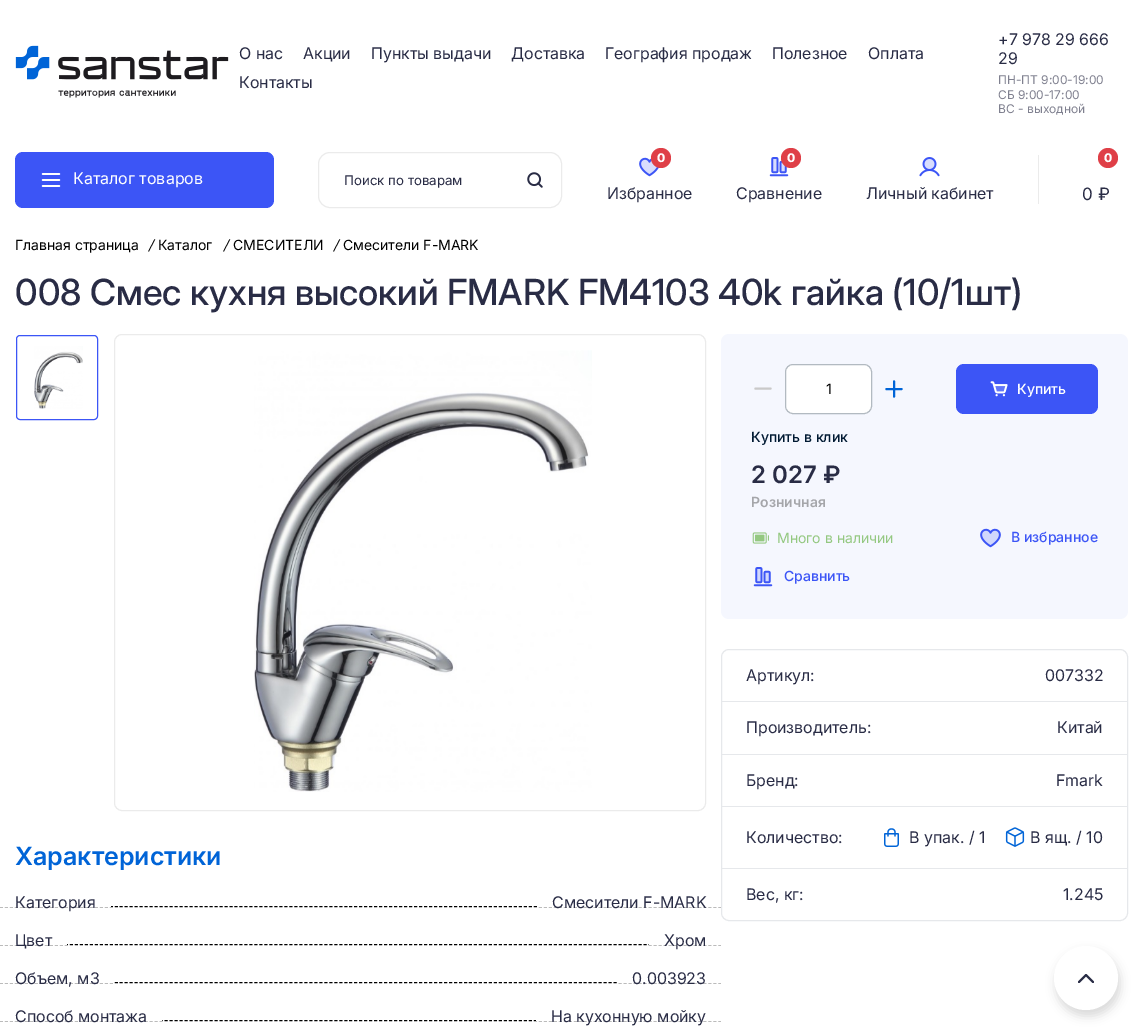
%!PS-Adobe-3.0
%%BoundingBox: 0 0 1143 1035
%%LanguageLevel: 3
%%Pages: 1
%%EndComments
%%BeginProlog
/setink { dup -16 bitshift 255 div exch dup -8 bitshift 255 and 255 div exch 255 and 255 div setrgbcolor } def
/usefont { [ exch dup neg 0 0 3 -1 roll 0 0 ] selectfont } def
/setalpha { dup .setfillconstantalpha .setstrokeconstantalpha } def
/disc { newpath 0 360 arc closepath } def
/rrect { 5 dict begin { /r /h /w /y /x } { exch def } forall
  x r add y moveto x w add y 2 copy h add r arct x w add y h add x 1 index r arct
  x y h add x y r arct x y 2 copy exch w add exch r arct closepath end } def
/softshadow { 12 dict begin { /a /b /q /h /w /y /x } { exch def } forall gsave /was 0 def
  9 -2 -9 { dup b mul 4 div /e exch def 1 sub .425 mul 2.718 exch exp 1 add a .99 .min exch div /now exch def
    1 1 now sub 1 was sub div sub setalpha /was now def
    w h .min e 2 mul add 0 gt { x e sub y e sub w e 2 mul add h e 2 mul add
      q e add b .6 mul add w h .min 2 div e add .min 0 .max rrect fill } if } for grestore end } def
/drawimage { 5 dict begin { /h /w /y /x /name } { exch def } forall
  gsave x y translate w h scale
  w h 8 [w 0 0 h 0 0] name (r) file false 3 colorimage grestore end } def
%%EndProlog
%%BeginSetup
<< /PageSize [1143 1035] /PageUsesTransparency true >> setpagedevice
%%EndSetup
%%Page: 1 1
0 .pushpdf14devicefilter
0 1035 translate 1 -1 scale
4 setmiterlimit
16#FFFFFF setink
0 0 1143 1035 rectfill
(img1.raw) 15 45 214 53 drawimage
/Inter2-Regular 16 usefont
16#292C45 setink
[
    [(О нас) 239 59]
    [(Акции) 303 59]
    [(Пункты выдачи) 371 59]
    [(Доставка) 511 59]
    [(География продаж) 605 59]
    [(Полезное) 772 59]
    [(Оплата) 868 59]
    [(Контакты) 239 88]
    [(+7 978 29 666) 998 45]
    [(29) 998 64]
] { aload pop moveto show } forall
/Inter-Regular 12 usefont
16#7F808F setink
[
    [(ПН-ПТ 9:00-19:00) 998 84]
    [(СБ 9:00-17:00) 998 99]
    [(ВС - выходной) 998 113]
] { aload pop moveto show } forall
16#3C55F6 setink
15 152 259 56 8 rrect fill
(img2.raw) 41 173 20 14 drawimage
/Inter-Regular 16 usefont
16#FFFFFF setink
73 184 moveto (Каталог товаров) show
16#EBEBEB setink
318.5 152.5 243 55 11.5 rrect stroke
/Inter-Regular 13.25 usefont
16#292C45 setink
344 185 moveto (Поиск по товарам) show
(img3.raw) 527 172 16 16 drawimage
(img4.raw) 639 157 20 20 drawimage
16#DF3F47 setink
661 158 10 disc fill
/Inter-ExtraBold 12 usefont
16#FFFFFF setink
657 162 moveto (0) show
/Inter2-Regular 16 usefont
16#292C45 setink
607 199 moveto (Избранное) show
(img5.raw) 769 157 20 20 drawimage
16#DF3F47 setink
791 158 10 disc fill
/Inter-ExtraBold 12 usefont
16#FFFFFF setink
787 162 moveto (0) show
/Inter2-Regular 16 usefont
16#292C45 setink
736 199 moveto (Сравнение) show
16#EBEBEB setink
1038 155 1 49 rectfill
16#DF3F47 setink
1108 158 10 disc fill
/Inter-ExtraBold 12 usefont
16#FFFFFF setink
1104 162 moveto (0) show
/Inter-Regular 17 usefont
16#292C45 setink
1082 200 moveto (0 ₽) show
(img6.raw) 919 157 21 20 drawimage
/Inter2-Regular 16 usefont
866 199 moveto (Личный кабинет) show
/Inter-Regular 14 usefont
16#000000 setink
15 250 moveto (Главная страница) show
/Inter-Italic 14 usefont
148 250 moveto (/) show
/Inter-Regular 14 usefont
158 250 moveto (Каталог) show
/Inter-Italic 14 usefont
223 250 moveto (/) show
/Inter-Regular 14 usefont
233 250 moveto (СМЕСИТЕЛИ) show
/Inter-Italic 14 usefont
333 250 moveto (/) show
/Inter-Regular 14 usefont
343 250 moveto (Смесители F-MARK) show
/Inter-Medium 36 usefont
16#292C45 setink
15 305 moveto (008 Смес кухня высокий FMARK FM4103 40k гайка \(10/1шт\)) show
16#F5F7FE setink
721 334 407 285 8 rrect fill
16#C9C9C9 setink
2.1 setlinewidth
1 setlinecap
1 setlinejoin
755.5 388.5 moveto 770.5 388.5 lineto stroke
16#FFFFFF setink
785 364 87 50 8 rrect fill
0.3 setalpha
16#001932 setink
1 setlinewidth
0 setlinecap
0 setlinejoin
785.5 364.5 86 49 7.5 rrect stroke
/Inter-Regular 14 usefont
1 setalpha
16#000000 setink
826 394 moveto (1) show
16#0064D7 setink
2.1 setlinewidth
1 setlinecap
1 setlinejoin
894 381.5 moveto 894 396.5 lineto 886.5 389 moveto 901.5 389 lineto stroke
16#3C55F6 setink
956 364 142 50 8 rrect fill
(img7.raw) 990 381 18 16 drawimage
/Inter2-Medium 14 usefont
16#FFFFFF setink
1017 394 moveto (Купить) show
16#001932 setink
751 442 moveto (Купить в клик) show
/Inter-SemiBold 24 usefont
16#292C45 setink
751 483 moveto (2 027 ₽) show
/Inter-SemiBold 14 usefont
16#A5A6AA setink
751 507 moveto (Розничная) show
(img8.raw) 752 532 17 12 drawimage
/Inter-Regular 14 usefont
16#94C881 setink
777 543 moveto (Много в наличии) show
(img9.raw) 980 528 21 20 drawimage
/Inter2-Medium 14 usefont
16#3C55F6 setink
1011 542 moveto (В избранное) show
(img10.raw) 753 567 20 20 drawimage
784 581 moveto (Сравнить) show
16#E6E8EB setink
1 setlinewidth
0 setlinecap
0 setlinejoin
721.5 649.5 406 271 7.5 rrect stroke
722 701 405 1 rectfill
/Inter2-Regular 16 usefont
16#292C45 setink
746 681 moveto (Артикул:) show
1045 681 moveto (007332) show
16#E6E8EB setink
722 754 405 1 rectfill
16#292C45 setink
746 733 moveto (Производитель:) show
1057 733 moveto (Китай) show
16#E6E8EB setink
722 806 405 1 rectfill
16#292C45 setink
746 786 moveto (Бренд:) show
1056 786 moveto (Fmark) show
16#E6E8EB setink
722 868 405 1 rectfill
16#292C45 setink
746 843 moveto (Количество:) show
(img11.raw) 884 828 15 19 drawimage
909 843 moveto (В упак. / 1) show
(img12.raw) 1005 827 20 20 drawimage
[
    [(В ящ. / 10) 1030 843]
    [(Вес, кг:) 746 900]
    [(1.245) 1063 900]
] { aload pop moveto show } forall
16#3C55F6 setink
16.5 335.5 81 84 3.5 rrect stroke
(img13.raw) 34 346 49 63 drawimage
16#EBEBEB setink
114.5 334.5 591 476 7.5 rrect stroke
(img14.raw) 254 350 338 442 drawimage
/Inter-SemiBold 25 usefont
16#0064D7 setink
15 865 moveto (Характеристики) show
16#000000 setink
[3 1.99] 0 setdash
0 906.5 moveto 721 906.5 lineto stroke
16#FFFFFF setink
0 906 111 1 rectfill
/Inter2-Regular 16 usefont
16#292C45 setink
15 908 moveto (Категория) show
16#FFFFFF setink
538 906 183 1 rectfill
16#292C45 setink
552 908 moveto (Смесители F-MARK) show
16#000000 setink
0 944.5 moveto 721 944.5 lineto stroke
16#FFFFFF setink
0 944 67 1 rectfill
16#292C45 setink
15 946 moveto (Цвет) show
16#FFFFFF setink
649 944 72 1 rectfill
16#292C45 setink
664 946 moveto (Хром) show
16#000000 setink
0 982.5 moveto 721 982.5 lineto stroke
16#FFFFFF setink
0 982 113 1 rectfill
16#292C45 setink
15 984 moveto (Объем, м3) show
16#FFFFFF setink
618 982 103 1 rectfill
16#292C45 setink
632 984 moveto (0.003923) show
16#000000 setink
0 1020.5 moveto 721 1020.5 lineto stroke
16#FFFFFF setink
0 1020 162 1 rectfill
16#292C45 setink
15 1022 moveto (Способ монтажа) show
16#FFFFFF setink
536 1020 185 1 rectfill
16#292C45 setink
551 1022 moveto (На кухонную мойку) show
16#000000 setink
1056 952 64 64 32 5 0.15 softshadow
16#FFFFFF setink
1086 978 32 disc fill
16#292C45 setink
2 setlinewidth
1 setlinecap
1 setlinejoin
[] 0 setdash
1079 982 moveto 1086 975 lineto 1093 982 lineto stroke
.poppdf14devicefilter showpage
%%EOF
